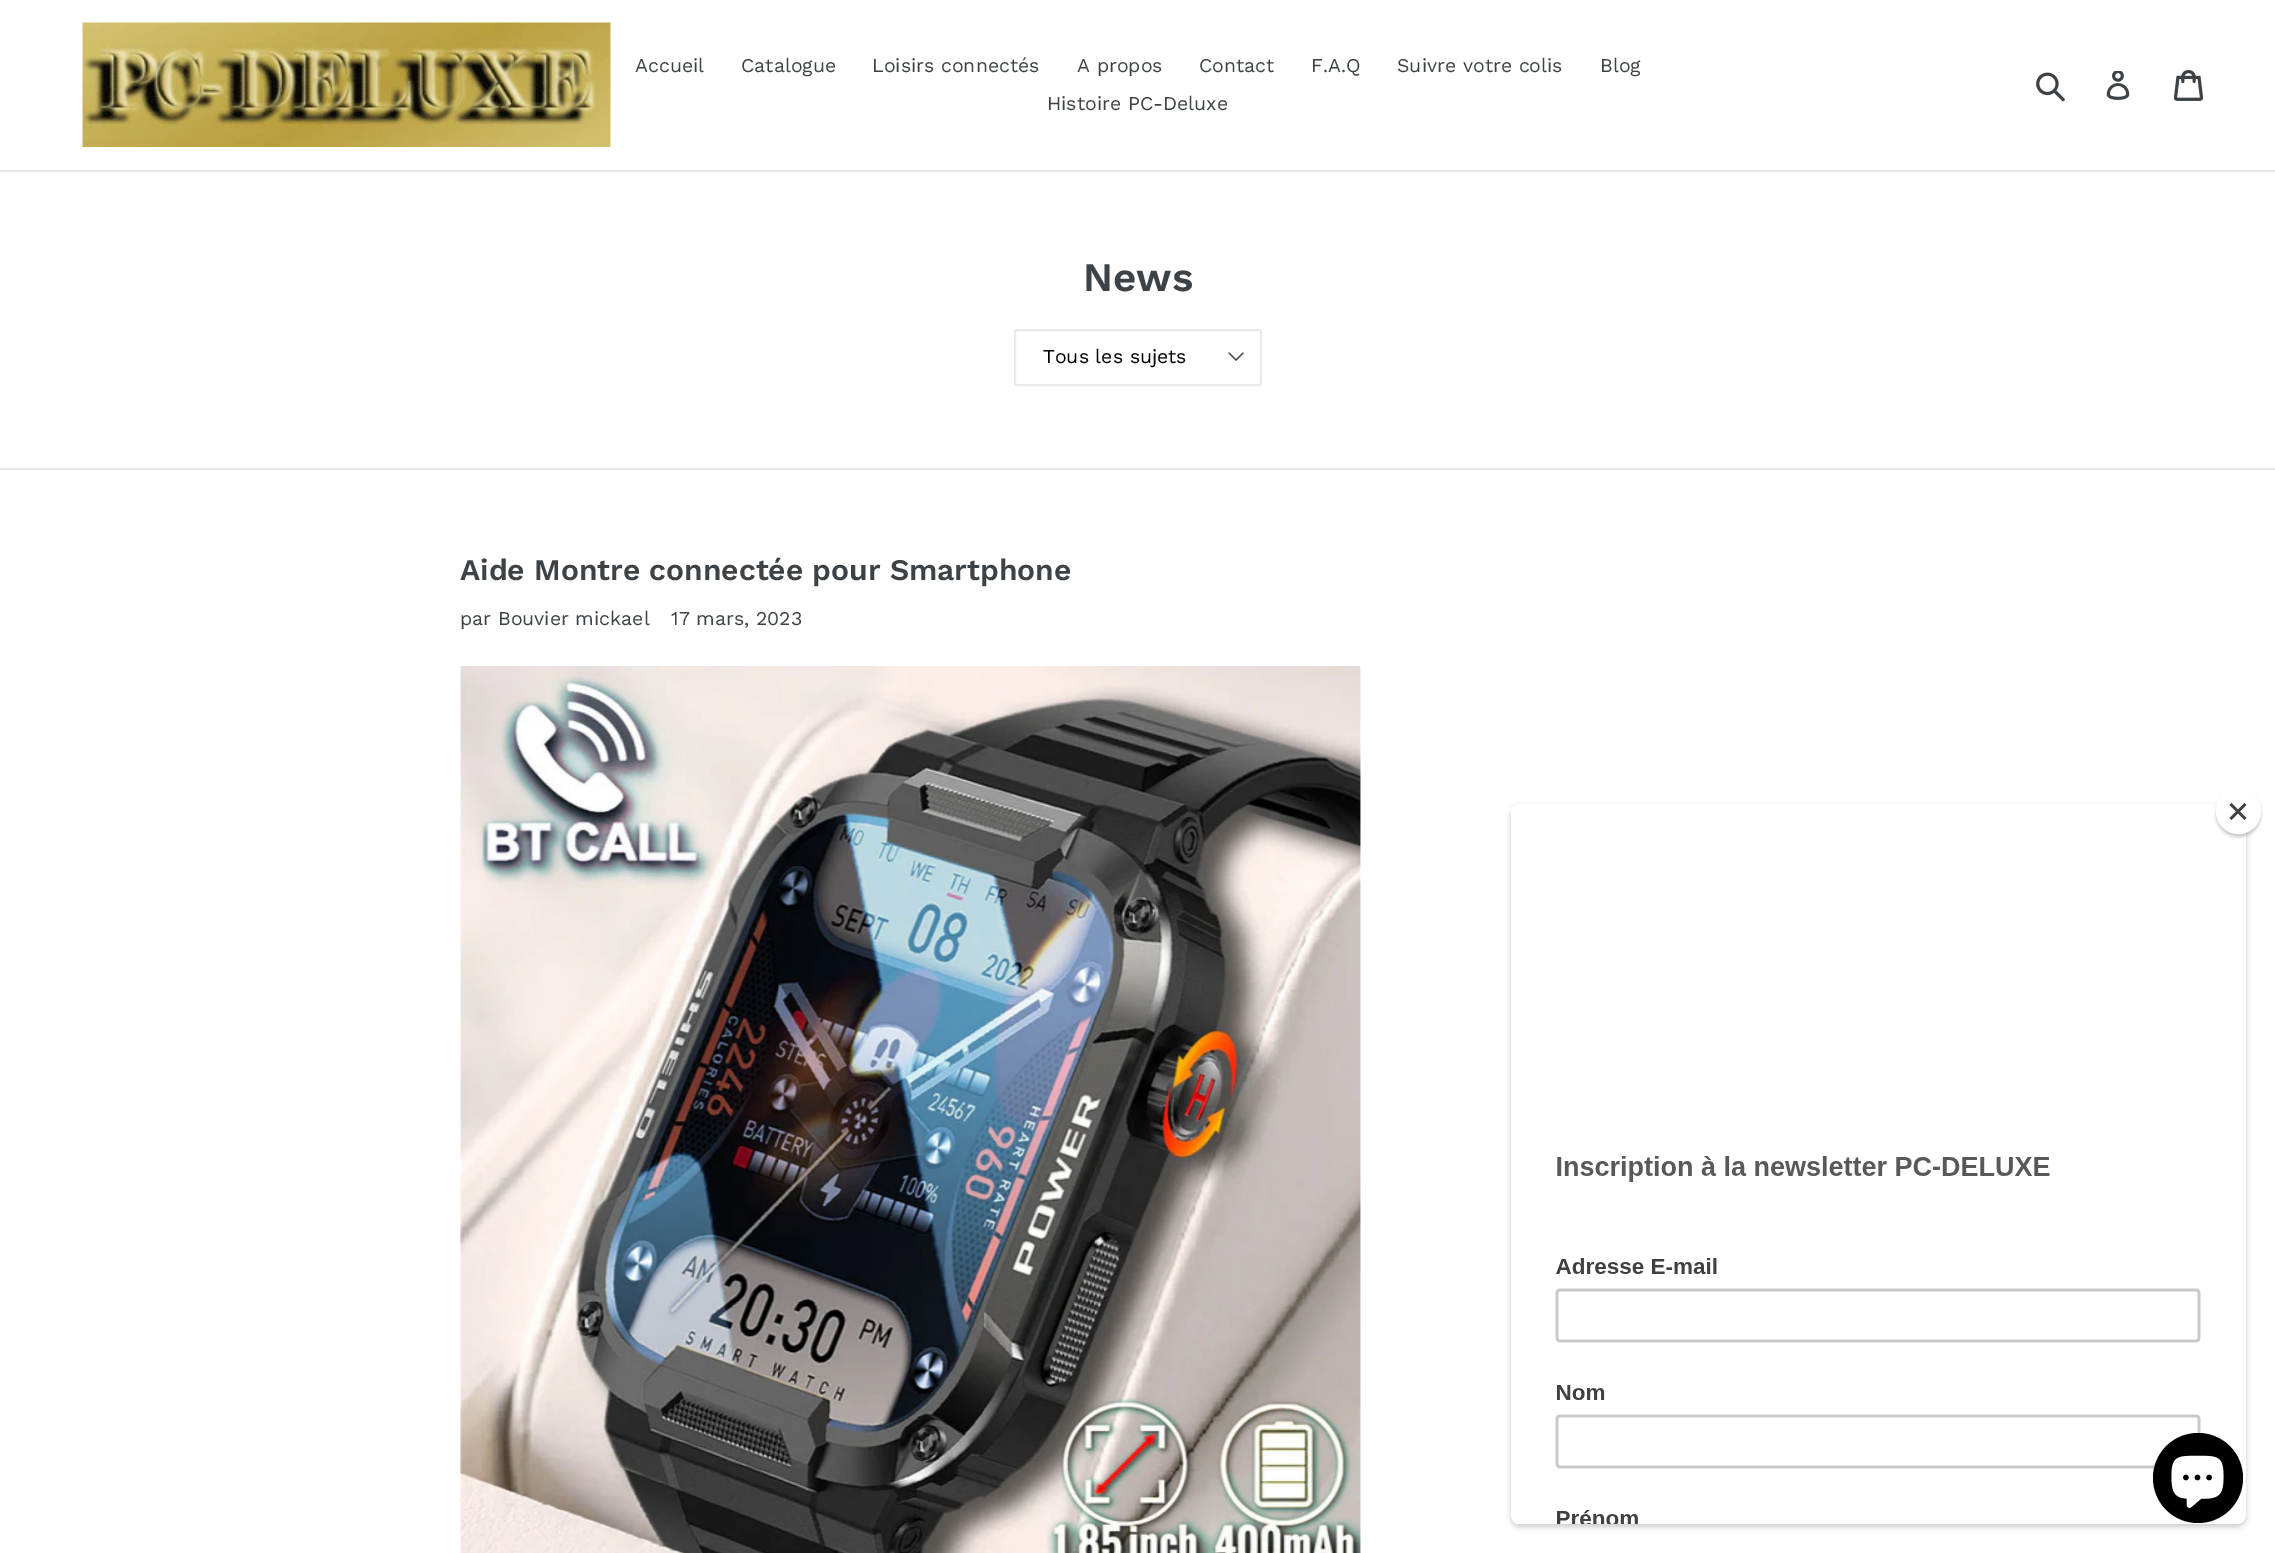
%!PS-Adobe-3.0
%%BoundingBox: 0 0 2275 1553
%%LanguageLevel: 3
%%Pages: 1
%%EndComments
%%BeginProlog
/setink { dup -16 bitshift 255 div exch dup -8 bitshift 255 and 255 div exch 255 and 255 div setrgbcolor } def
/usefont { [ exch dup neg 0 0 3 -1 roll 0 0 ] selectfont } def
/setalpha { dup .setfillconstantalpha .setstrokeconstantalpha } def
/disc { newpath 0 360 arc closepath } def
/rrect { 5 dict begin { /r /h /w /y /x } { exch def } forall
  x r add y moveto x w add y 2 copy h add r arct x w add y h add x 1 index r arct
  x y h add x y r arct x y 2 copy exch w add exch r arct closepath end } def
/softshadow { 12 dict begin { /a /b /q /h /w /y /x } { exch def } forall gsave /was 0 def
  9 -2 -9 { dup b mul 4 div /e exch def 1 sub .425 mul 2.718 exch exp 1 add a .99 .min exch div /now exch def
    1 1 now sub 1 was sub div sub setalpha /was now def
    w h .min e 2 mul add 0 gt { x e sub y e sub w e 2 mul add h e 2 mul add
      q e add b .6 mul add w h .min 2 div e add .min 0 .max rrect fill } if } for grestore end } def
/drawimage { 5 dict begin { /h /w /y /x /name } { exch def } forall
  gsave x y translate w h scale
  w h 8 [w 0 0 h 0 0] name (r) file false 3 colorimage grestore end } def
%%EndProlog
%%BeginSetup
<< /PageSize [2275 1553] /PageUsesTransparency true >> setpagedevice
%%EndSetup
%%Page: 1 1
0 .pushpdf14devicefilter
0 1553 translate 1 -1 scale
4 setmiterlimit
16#FFFFFF setink
0 0 2275 1553 rectfill
16#E8E9EB setink
0 170 2275 2 rectfill
(img1.raw) 82 22 529 125 drawimage
/WorkSans-Regular 19.5 usefont
16#3D4246 setink
[
    [(Accueil) 635 72]
    [(Catalogue) 741 72]
    [(Loisirs connectés) 872 72]
    [(A propos) 1077 72]
    [(Contact) 1199 72]
    [(F.A.Q) 1311 72]
    [(Suivre votre colis) 1397 72]
    [(Blog) 1600 72]
    [(Histoire PC-Deluxe) 1047 110]
] { aload pop moveto show } forall
(img2.raw) 2036 72 29 30 drawimage
(img3.raw) 2106 71 24 29 drawimage
(img4.raw) 2174 69 30 32 drawimage
/WorkSans-SemiBold 40.5 usefont
1083 291 moveto (News) show
(img5.raw) 1228 352 16 9 drawimage
16#E8E9EB setink
2 setlinewidth
1015 330 246 55 2 rrect stroke
/WorkSans-Regular 19.5 usefont
16#000000 setink
1043 363 moveto (Tous les sujets) show
16#E8E9EB setink
0 468 2275 2 rectfill
/WorkSans-SemiBold 30 usefont
16#3D4246 setink
460 580 moveto (Aide Montre connectée pour Smartphone) show
/WorkSans-Regular 19.5 usefont
460 625 moveto (par Bouvier mickael) show
671 625 moveto (17 mars, 2023) show
(img6.raw) 460 666 901 887 drawimage
16#000000 setink
1511 807 735 720 9 3 0.2 softshadow
16#FFFFFF setink
1511 804 735 720 9 rrect fill
16#000000 setink
2216 792 45 45 22.5 1.5 0.2 softshadow
16#FFFFFF setink
2238.5 811.5 22.5 disc fill
16#414141 setink
2244.5 803 moveto 2246.5 805 lineto 2231.5 820 lineto 2229.5 818 lineto closepath fill
2229.5 805 moveto 2231.5 803 lineto 2246.5 818 lineto 2244.5 820 lineto closepath fill
(img7.raw) 1513 1156 688 368 drawimage
16#000000 setink
2198 1478 45 disc fill
(img8.raw) 2171 1455 53 53 drawimage
.poppdf14devicefilter showpage
%%EOF
